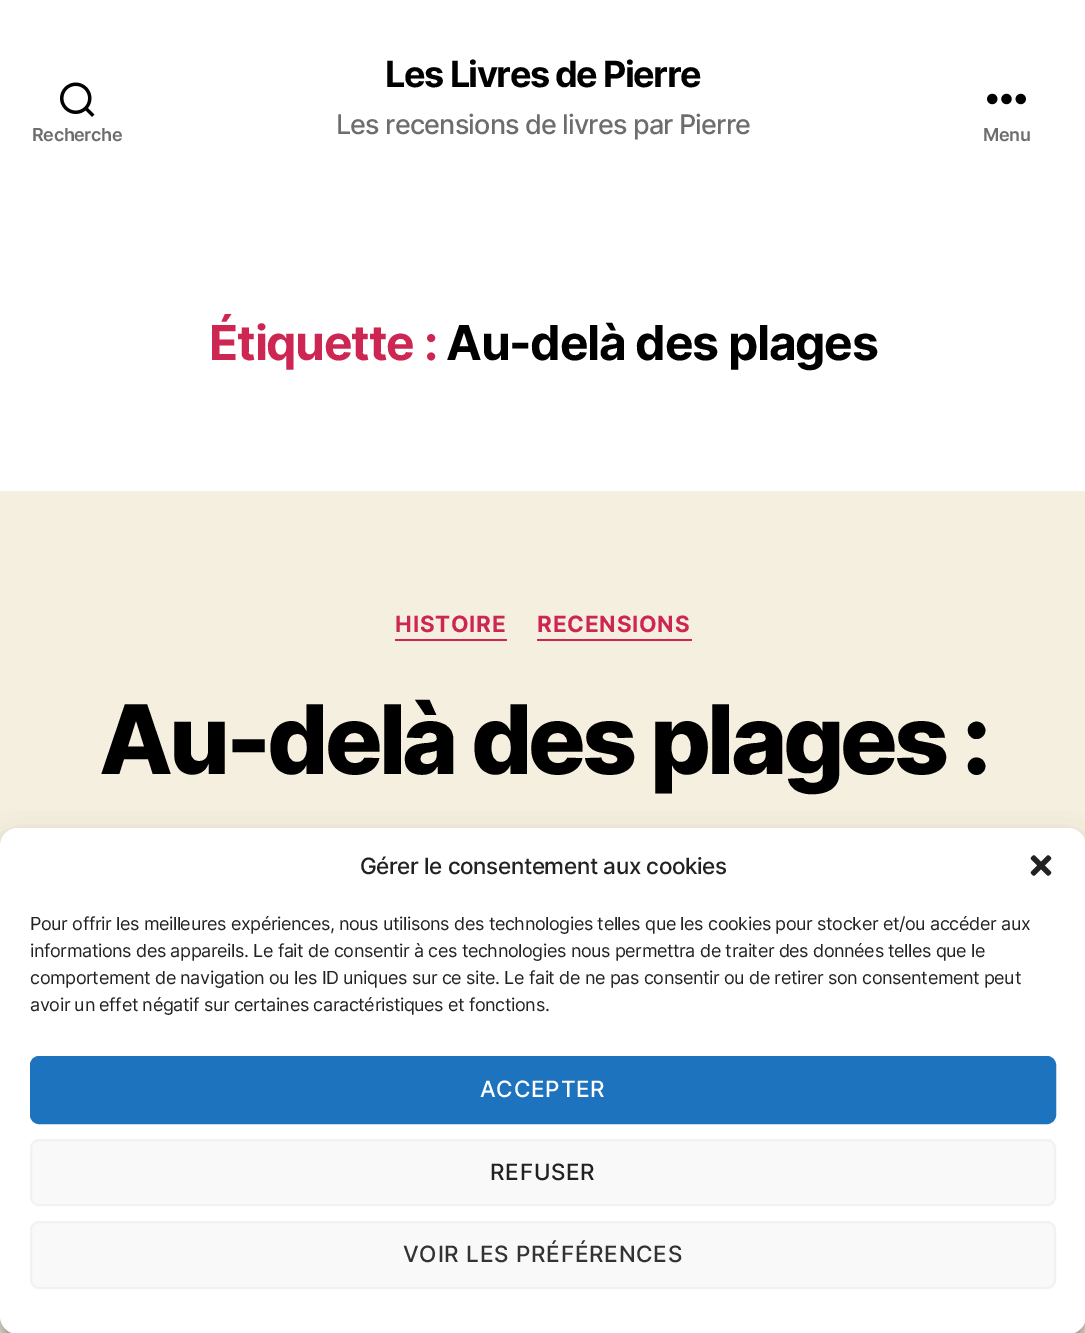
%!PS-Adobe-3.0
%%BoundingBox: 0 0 1085 1333
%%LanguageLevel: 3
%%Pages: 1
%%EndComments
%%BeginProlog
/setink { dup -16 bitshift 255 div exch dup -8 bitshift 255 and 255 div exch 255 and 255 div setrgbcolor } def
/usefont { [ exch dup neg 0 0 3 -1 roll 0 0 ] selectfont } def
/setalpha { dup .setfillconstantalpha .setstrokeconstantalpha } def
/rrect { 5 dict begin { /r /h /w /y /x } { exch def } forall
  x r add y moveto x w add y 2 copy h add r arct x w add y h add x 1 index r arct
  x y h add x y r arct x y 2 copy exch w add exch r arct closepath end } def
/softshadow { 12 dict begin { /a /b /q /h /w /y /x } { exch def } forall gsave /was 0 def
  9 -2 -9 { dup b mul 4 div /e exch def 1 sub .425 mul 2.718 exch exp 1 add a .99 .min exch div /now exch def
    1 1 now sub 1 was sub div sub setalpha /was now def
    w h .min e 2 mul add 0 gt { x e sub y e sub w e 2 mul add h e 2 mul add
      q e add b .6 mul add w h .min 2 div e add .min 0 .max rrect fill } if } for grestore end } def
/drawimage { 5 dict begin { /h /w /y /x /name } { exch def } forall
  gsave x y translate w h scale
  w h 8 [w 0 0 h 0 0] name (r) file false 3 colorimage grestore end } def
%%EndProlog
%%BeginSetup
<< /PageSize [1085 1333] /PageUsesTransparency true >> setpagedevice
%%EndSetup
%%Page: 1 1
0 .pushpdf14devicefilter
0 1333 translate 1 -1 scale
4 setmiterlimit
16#F5EFE0 setink
0 0 1085 1333 rectfill
16#FFFFFF setink
0 0 1085 491 rectfill
(img1.raw) 60 82 35 35 drawimage
/Inter-SemiBold 18 usefont
16#6D6D6D setink
32 141 moveto -0.41 0 (Recherche) ashow
/Inter-Bold 36 usefont
16#000000 setink
385 87 moveto -1.5 0 (Les Livres de Pierre) ashow
/Inter-Medium 27 usefont
16#6D6D6D setink
336 134 moveto -0.85 0 (Les recensions de livres par Pierre) ashow
(img2.raw) 987 93 39 12 drawimage
/Inter-SemiBold 18 usefont
983 141 moveto -0.41 0 (Menu) ashow
/Inter-Bold 48 usefont
16#CD2653 setink
209 360 moveto -1.25 0 (Étiquette :) ashow
16#000000 setink
446 360 moveto -1.25 0 (Au-delà des plages) ashow
16#CD2653 setink
395 639 112 2 rectfill
/Inter-Bold 22.5 usefont
395 632 moveto 0.75 0 (HISTOIRE) ashow
537 639 155 2 rectfill
537 632 moveto 0.75 0 (RECENSIONS) ashow
/Inter-ExtraBold 96 usefont
16#000000 setink
99 774 moveto -4 0 (Au-delà des plages :) ashow
0 837 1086 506 18 4.5 0.23 softshadow
0 843 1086 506 18 15 0.19 softshadow
16#FFFFFF setink
0 828 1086 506 18 rrect fill
/Inter-Medium 22.5 usefont
16#222222 setink
360 874 moveto -0.41 0 (Gérer le consentement aux cookies) ashow
(img3.raw) 1030 855 22 21 drawimage
/Inter-Regular 18 usefont
30 930 moveto -0.41 0 (Pour offrir les meilleures expériences, nous utilisons des technologies telles que les cookies pour stocker et/ou accéder aux) ashow
30 957 moveto -0.41 0 (informations des appareils. Le fait de consentir à ces technologies nous permettra de traiter des données telles que le) ashow
30 984 moveto -0.41 0 (comportement de navigation ou les ID uniques sur ce site. Le fait de ne pas consentir ou de retirer son consentement peut) ashow
30 1011 moveto -0.41 0 (avoir un effet négatif sur certaines caractéristiques et fonctions.) ashow
16#1E73BE setink
31 1057 1024 66 8 rrect gsave fill grestore
2 setlinewidth
stroke
/Inter-Medium 22.5 usefont
16#FFFFFF setink
480 1097 moveto 0.75 0 (ACCEPTER) ashow
16#F9F9F9 setink
31 1140 1024 65 8 rrect gsave fill grestore
16#F2F2F2 setink
stroke
16#222222 setink
490 1180 moveto 0.75 0 (REFUSER) ashow
16#F9F9F9 setink
31 1222 1024 66 8 rrect gsave fill grestore
16#F2F2F2 setink
stroke
16#333333 setink
403 1262 moveto 0.75 0 (VOIR LES PRÉFÉRENCES) ashow
.poppdf14devicefilter showpage
%%EOF
